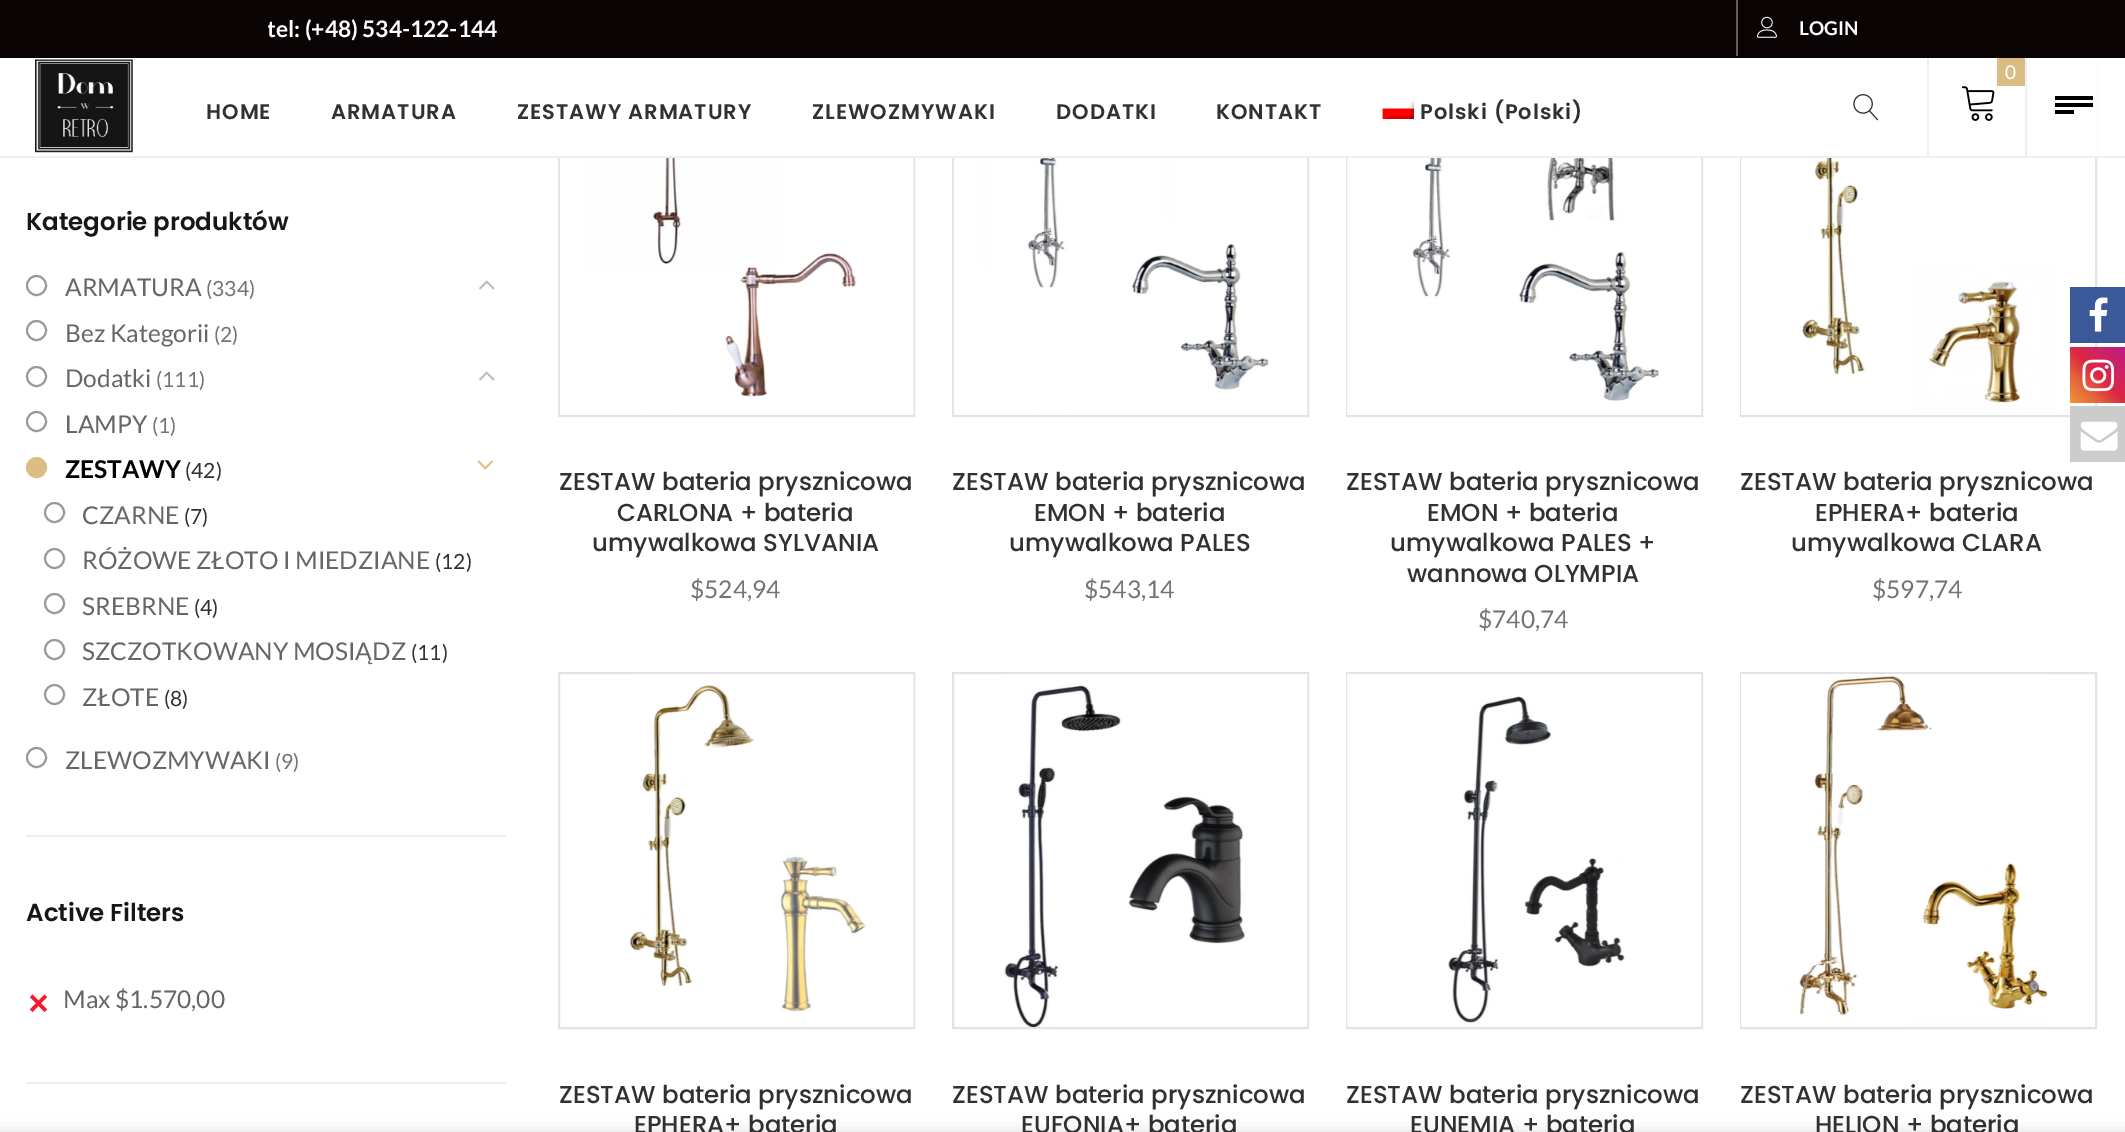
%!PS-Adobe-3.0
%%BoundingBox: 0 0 2125 1132
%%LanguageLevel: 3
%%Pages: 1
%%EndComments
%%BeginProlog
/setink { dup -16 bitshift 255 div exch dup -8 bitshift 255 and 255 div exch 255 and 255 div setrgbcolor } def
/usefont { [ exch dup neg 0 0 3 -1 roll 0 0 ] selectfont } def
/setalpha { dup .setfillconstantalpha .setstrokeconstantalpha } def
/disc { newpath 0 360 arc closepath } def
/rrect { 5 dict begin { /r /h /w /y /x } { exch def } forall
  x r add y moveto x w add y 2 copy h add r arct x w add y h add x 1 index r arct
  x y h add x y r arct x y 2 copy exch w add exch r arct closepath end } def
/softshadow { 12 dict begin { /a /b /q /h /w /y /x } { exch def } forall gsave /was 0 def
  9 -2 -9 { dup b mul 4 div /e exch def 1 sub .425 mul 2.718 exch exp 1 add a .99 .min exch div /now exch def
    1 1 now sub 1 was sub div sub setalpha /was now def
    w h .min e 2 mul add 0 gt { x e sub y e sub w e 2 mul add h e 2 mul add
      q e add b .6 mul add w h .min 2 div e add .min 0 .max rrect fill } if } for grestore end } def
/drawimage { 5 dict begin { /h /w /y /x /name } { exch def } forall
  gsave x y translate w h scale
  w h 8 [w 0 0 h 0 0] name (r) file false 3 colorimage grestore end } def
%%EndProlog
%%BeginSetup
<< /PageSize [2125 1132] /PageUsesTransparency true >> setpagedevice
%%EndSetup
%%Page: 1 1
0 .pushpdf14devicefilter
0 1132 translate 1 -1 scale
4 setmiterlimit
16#FFFFFF setink
0 0 2125 1132 rectfill
16#E3E3E3 setink
2 setlinewidth
1741 61 355 355 rectstroke
16#EFEFEF setink
2025 56 2 100 rectfill
16#E3E3E3 setink
559 61 355 355 rectstroke
953 61 355 355 rectstroke
1347 61 355 355 rectstroke
[
    [558 60 1467 96 16#FFFFFF]
    [1927 56 2 100 16#EFEFEF]
    [0 0 2125 58 16#0A0303]
] { aload pop setink rectfill } forall
gsave
268 0 254 58 rectclip
/Lato-Bold 22.75 usefont
16#FFFFFF setink
267 37 moveto (tel: \(+48\) 534-122-144) show
grestore
16#625E5E setink
1736 0 2 56 rectfill
(img1.raw) 1757 16 20 22 drawimage
/Lato-Bold 19 usefont
16#FFFFFF setink
1799 35 moveto (LOGIN) show
16#EFEFEF setink
0 156 2125 2 rectfill
(img2.raw) 35 59 98 94 drawimage
[
    [2027 60 70 96 16#FFFFFF]
    [2055 96 38 4 16#000000]
    [2055 103 38 4 16#000000]
    [2055 110 19 4 16#000000]
    [1997 58 28 28 16#DBBC83]
] { aload pop setink rectfill } forall
/Lato-Regular 19 usefont
16#FFFFFF setink
2005 79 moveto (0) show
(img3.raw) 1961 86 34 35 drawimage
/Poppins-SemiBold 21 usefont
16#313131 setink
206 119 moveto 1 0 (HOME) ashow
331 119 moveto 1 0 (ARMATURA) ashow
517 119 moveto 1 0 (ZESTAWY ARMATURY) ashow
812 119 moveto 1 0 (ZLEWOZMYWAKI) ashow
1056 119 moveto 1 0 (DODATKI) ashow
1216 119 moveto 1 0 (KONTAKT) ashow
(img4.raw) 1382 101 32 18 drawimage
1420 119 moveto 1 0 (Polski \(Polski\)) ashow
(img5.raw) 1853 94 26 27 drawimage
16#EEEEEE setink
26 835 480 2 rectfill
/Poppins-SemiBold 24.5 usefont
16#171717 setink
26 230 moveto (Kategorie produktów) show
16#999999 setink
36.5 285.5 9.5 disc stroke
/Lato-Regular 24.5 usefont
16#666666 setink
65 296 moveto (ARMATURA) show
/Lato-Regular 21 usefont
16#737373 setink
206 296 moveto (\(334\)) show
(img6.raw) 479 280 16 10 drawimage
16#999999 setink
36.5 330.5 9.5 disc stroke
/Lato-Regular 24.5 usefont
16#666666 setink
65 342 moveto (Bez Kategorii) show
/Lato-Regular 21 usefont
16#737373 setink
214 342 moveto (\(2\)) show
16#999999 setink
36.5 376.5 9.5 disc stroke
/Lato-Regular 24.5 usefont
16#666666 setink
65 387 moveto (Dodatki) show
/Lato-Regular 21 usefont
16#737373 setink
156 387 moveto (\(111\)) show
(img6.raw) 479 371 16 10 drawimage
16#999999 setink
36.5 421.5 9.5 disc stroke
/Lato-Regular 24.5 usefont
16#666666 setink
65 433 moveto (LAMPY) show
/Lato-Regular 21 usefont
16#737373 setink
152 433 moveto (\(1\)) show
16#DBBC83 setink
36.5 467.5 9.5 disc gsave fill grestore
stroke
/Lato-Bold 24.5 usefont
16#000000 setink
65 478 moveto (ZESTAWY) show
/Lato-Regular 21 usefont
16#313131 setink
185 478 moveto (\(42\)) show
(img7.raw) 477 460 17 10 drawimage
16#999999 setink
54.5 512.5 9.5 disc stroke
/Lato-Regular 24.5 usefont
16#666666 setink
82 524 moveto (CZARNE) show
/Lato-Regular 21 usefont
16#313131 setink
184 524 moveto (\(7\)) show
16#999999 setink
54.5 558.5 9.5 disc stroke
/Lato-Regular 24.5 usefont
16#666666 setink
82 569 moveto (RÓŻOWE ZŁOTO I MIEDZIANE) show
/Lato-Regular 21 usefont
16#313131 setink
435 569 moveto (\(12\)) show
16#999999 setink
54.5 603.5 9.5 disc stroke
/Lato-Regular 24.5 usefont
16#666666 setink
82 615 moveto (SREBRNE) show
/Lato-Regular 21 usefont
16#313131 setink
194 615 moveto (\(4\)) show
16#999999 setink
54.5 649.5 9.5 disc stroke
/Lato-Regular 24.5 usefont
16#666666 setink
82 660 moveto (SZCZOTKOWANY MOSIĄDZ) show
/Lato-Regular 21 usefont
16#313131 setink
411 660 moveto (\(11\)) show
16#999999 setink
54.5 694.5 9.5 disc stroke
/Lato-Regular 24.5 usefont
16#666666 setink
82 706 moveto (ZŁOTE) show
/Lato-Regular 21 usefont
16#313131 setink
164 706 moveto (\(8\)) show
16#999999 setink
36.5 757.5 9.5 disc stroke
/Lato-Regular 24.5 usefont
16#666666 setink
65 769 moveto (ZLEWOZMYWAKI) show
/Lato-Regular 21 usefont
16#737373 setink
275 769 moveto (\(9\)) show
16#EEEEEE setink
26 1082 480 2 rectfill
/Poppins-SemiBold 24.5 usefont
16#171717 setink
26 921 moveto (Active Filters) show
16#F9172B setink
32.5 994.5 moveto 47 1009.5 lineto 44.5 1012 lineto 30 997 lineto closepath fill
/Lato-Regular 24.5 usefont
16#666666 setink
63 1008 moveto (Max $1.570,00) show
16#F9172B setink
44.5 994.5 moveto 47 997 lineto 32.5 1012 lineto 30 1009.5 lineto closepath fill
(img8.raw) 560 158 354 257 drawimage
/Poppins-Medium 24.5 usefont
16#313131 setink
[
    [(ZESTAW bateria prysznicowa) 559 490]
    [(CARLONA + bateria) 617 521]
    [(umywalkowa SYLVANIA) 592 551]
] { aload pop moveto show } forall
/Lato-Regular 24.5 usefont
16#737373 setink
690 598 moveto ($524,94) show
(img9.raw) 954 158 354 256 drawimage
/Poppins-Medium 24.5 usefont
16#313131 setink
[
    [(ZESTAW bateria prysznicowa) 952 490]
    [(EMON + bateria) 1034 521]
    [(umywalkowa PALES) 1009 551]
] { aload pop moveto show } forall
/Lato-Regular 24.5 usefont
16#737373 setink
1084 598 moveto ($543,14) show
(img10.raw) 1347 158 355 257 drawimage
/Poppins-Medium 24.5 usefont
16#313131 setink
[
    [(ZESTAW bateria prysznicowa) 1346 490]
    [(EMON + bateria) 1427 521]
    [(umywalkowa PALES +) 1390 551]
    [(wannowa OLYMPIA) 1407 582]
] { aload pop moveto show } forall
/Lato-Regular 24.5 usefont
16#737373 setink
1478 628 moveto ($740,74) show
(img11.raw) 1741 158 354 257 drawimage
/Poppins-Medium 24.5 usefont
16#313131 setink
[
    [(ZESTAW bateria prysznicowa) 1740 490]
    [(EPHERA+ bateria) 1815 521]
    [(umywalkowa CLARA) 1791 551]
] { aload pop moveto show } forall
/Lato-Regular 24.5 usefont
16#737373 setink
1872 598 moveto ($597,74) show
16#E3E3E3 setink
559 673 355 355 rectstroke
(img12.raw) 629 674 285 353 drawimage
/Poppins-Medium 24.5 usefont
16#313131 setink
559 1103 moveto (ZESTAW bateria prysznicowa) show
634 1133 moveto (EPHERA+ bateria) show
16#E3E3E3 setink
953 673 355 355 rectstroke
(img13.raw) 1003 674 305 353 drawimage
16#313131 setink
952 1103 moveto (ZESTAW bateria prysznicowa) show
1021 1133 moveto (EUFONIA+ bateria) show
16#E3E3E3 setink
1347 673 355 355 rectstroke
(img14.raw) 1347 674 355 353 drawimage
16#313131 setink
1346 1103 moveto (ZESTAW bateria prysznicowa) show
1410 1133 moveto (EUNEMIA + bateria) show
16#E3E3E3 setink
1741 673 355 355 rectstroke
(img15.raw) 1741 674 307 353 drawimage
16#313131 setink
1740 1103 moveto (ZESTAW bateria prysznicowa) show
1815 1133 moveto (HELION + bateria) show
16#3B5998 setink
2070 287 55 56 rectfill
(img16.raw) 2089 297 19 35 drawimage
gsave 2070 347 moveto 2125 347 lineto 2125 403 lineto 2070 403 lineto closepath clip newpath
<< /ShadingType 2 /ColorSpace /DeviceRGB /Coords [2070 403 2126 347] /Extend [true true] /Function << /FunctionType 3 /Domain [0 1] /Functions [<< /FunctionType 2 /Domain [0 1] /C0 [0.941 0.58 0.2] /C1 [0.902 0.408 0.235] /N 1 >> << /FunctionType 2 /Domain [0 1] /C0 [0.902 0.408 0.235] /C1 [0.863 0.153 0.263] /N 1 >> << /FunctionType 2 /Domain [0 1] /C0 [0.863 0.153 0.263] /C1 [0.8 0.137 0.4] /N 1 >> << /FunctionType 2 /Domain [0 1] /C0 [0.8 0.137 0.4] /C1 [0.737 0.094 0.533] /N 1 >>] /Bounds [0.25 0.5 0.75] /Encode [0 1 0 1 0 1 0 1] >> >> shfill grestore
(img17.raw) 2082 359 32 33 drawimage
16#CCCCCC setink
2070 406 55 56 rectfill
(img18.raw) 2080 421 38 30 drawimage
16#000000 setink
0 1132 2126 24 0 8 0.14 softshadow
.poppdf14devicefilter showpage
%%EOF
